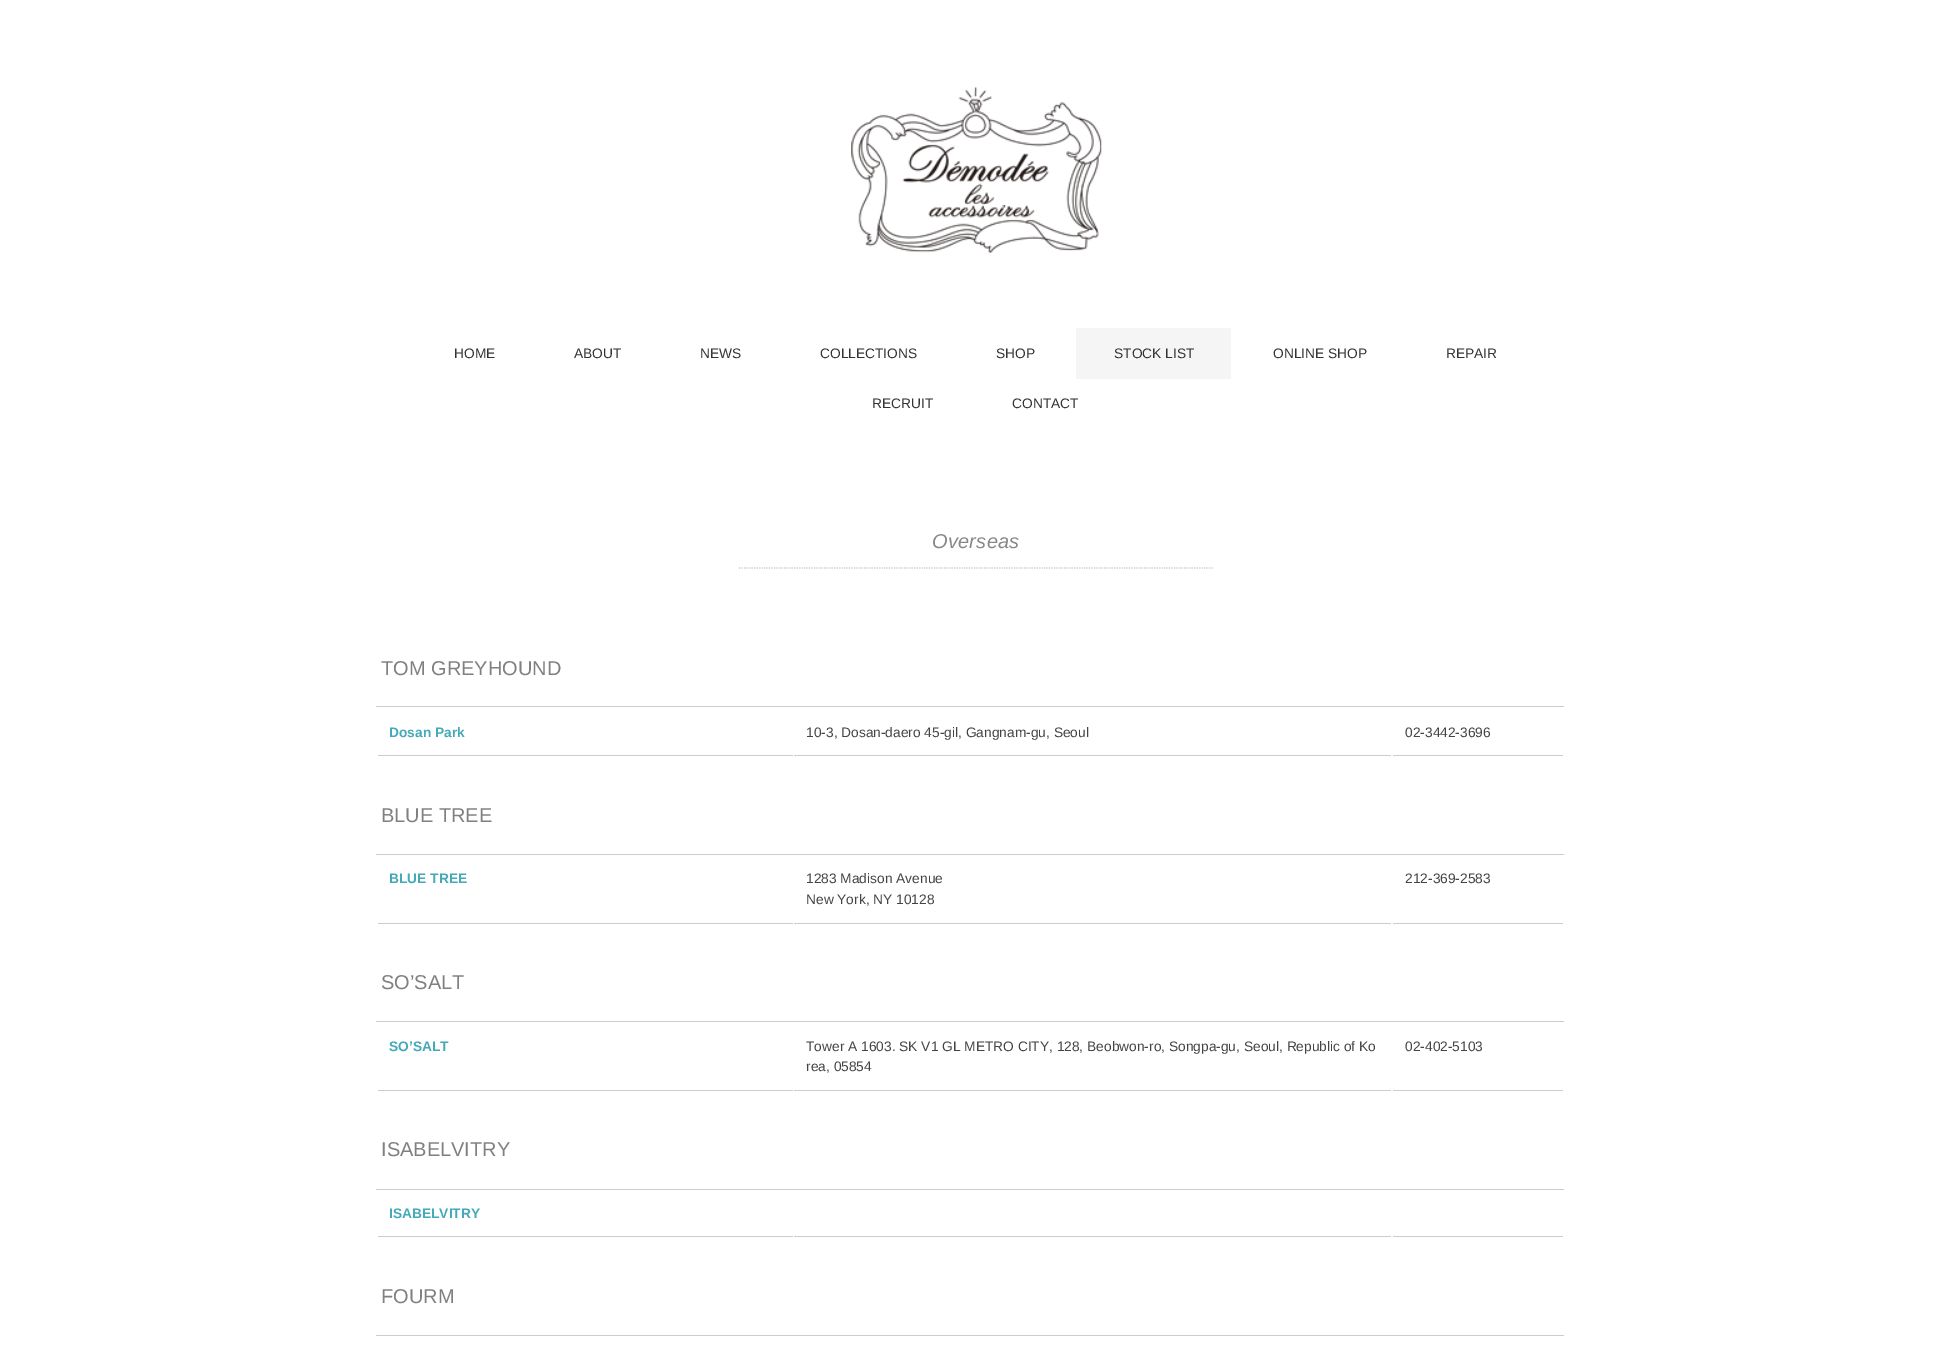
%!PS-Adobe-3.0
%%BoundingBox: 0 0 1951 1355
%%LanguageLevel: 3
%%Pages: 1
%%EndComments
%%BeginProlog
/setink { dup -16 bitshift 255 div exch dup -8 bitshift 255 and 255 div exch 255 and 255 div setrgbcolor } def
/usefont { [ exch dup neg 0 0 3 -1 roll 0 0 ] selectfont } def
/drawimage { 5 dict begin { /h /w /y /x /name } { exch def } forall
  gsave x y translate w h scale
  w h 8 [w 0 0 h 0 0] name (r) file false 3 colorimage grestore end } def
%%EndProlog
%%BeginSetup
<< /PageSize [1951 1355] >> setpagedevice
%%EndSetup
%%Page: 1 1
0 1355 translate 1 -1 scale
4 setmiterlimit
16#FFFFFF setink
0 0 1951 1355 rectfill
(img1.raw) 851 87 251 166 drawimage
/LiberationSans-Regular 13.75 usefont
16#333333 setink
[
    [(HOME) 454 358]
    [(ABOUT) 574 358]
    [(NEWS) 700 358]
    [(COLLECTIONS) 820 358]
    [(SHOP) 996 358]
] { aload pop moveto show } forall
16#F5F5F5 setink
1076 328 155 51 rectfill
16#333333 setink
[
    [(STOCK LIST) 1114 358]
    [(ONLINE SHOP) 1273 358]
    [(REPAIR) 1446 358]
    [(RECRUIT) 872 408]
    [(CONTACT) 1012 408]
] { aload pop moveto show } forall
16#CCCCCC setink
1.2 setlinewidth
[1.25 1.25] 0 setdash
739 568 moveto 1214 568 lineto stroke
/LiberationSans-Italic 20 usefont
16#888888 setink
932 548 moveto 0.25 0 (Overseas) ashow
/LiberationSans-Regular 20 usefont
16#808080 setink
381 675 moveto (TOM GREYHOUND) show
16#CCCCCC setink
376 706 1188 1 rectfill
378 755 415 1 rectfill
/LiberationSans-Bold 13.75 usefont
16#45AAB8 setink
389 737 moveto (Dosan Park) show
16#CCCCCC setink
794 755 597 1 rectfill
/LiberationSans-Regular 13.75 usefont
16#444444 setink
806 737 moveto (10-3, Dosan-daero 45-gil, Gangnam-gu, Seoul) show
16#CCCCCC setink
1393 755 170 1 rectfill
16#444444 setink
1405 737 moveto (02-3442-3696) show
/LiberationSans-Regular 20 usefont
16#808080 setink
381 822 moveto (BLUE TREE) show
16#CCCCCC setink
376 854 1188 1 rectfill
378 923 415 1 rectfill
/LiberationSans-Bold 13.75 usefont
16#45AAB8 setink
389 883 moveto (BLUE TREE) show
16#CCCCCC setink
794 923 597 1 rectfill
/LiberationSans-Regular 13.75 usefont
16#444444 setink
806 883 moveto (1283 Madison Avenue) show
806 904 moveto (New York, NY 10128) show
16#CCCCCC setink
1393 923 170 1 rectfill
16#444444 setink
1405 883 moveto (212-369-2583) show
/LiberationSans-Regular 20 usefont
16#808080 setink
381 989 moveto (SO’SALT) show
16#CCCCCC setink
376 1021 1188 1 rectfill
378 1090 415 1 rectfill
/LiberationSans-Bold 13.75 usefont
16#45AAB8 setink
389 1051 moveto (SO’SALT) show
16#CCCCCC setink
794 1090 597 1 rectfill
/LiberationSans-Regular 13.75 usefont
16#444444 setink
806 1051 moveto (Tower A 1603. SK V1 GL METRO CITY, 128, Beobwon-ro, Songpa-gu, Seoul, Republic of Ko) show
806 1071 moveto (rea, 05854) show
16#CCCCCC setink
1393 1090 170 1 rectfill
16#444444 setink
1405 1051 moveto (02-402-5103) show
/LiberationSans-Regular 20 usefont
16#808080 setink
381 1156 moveto (ISABELVITRY) show
16#CCCCCC setink
376 1189 1188 1 rectfill
378 1236 415 1 rectfill
/LiberationSans-Bold 13.75 usefont
16#45AAB8 setink
389 1218 moveto (ISABELVITRY) show
16#CCCCCC setink
794 1236 597 1 rectfill
1393 1236 170 1 rectfill
/LiberationSans-Regular 20 usefont
16#808080 setink
381 1303 moveto (FOURM) show
16#CCCCCC setink
376 1335 1188 1 rectfill
showpage
%%EOF
